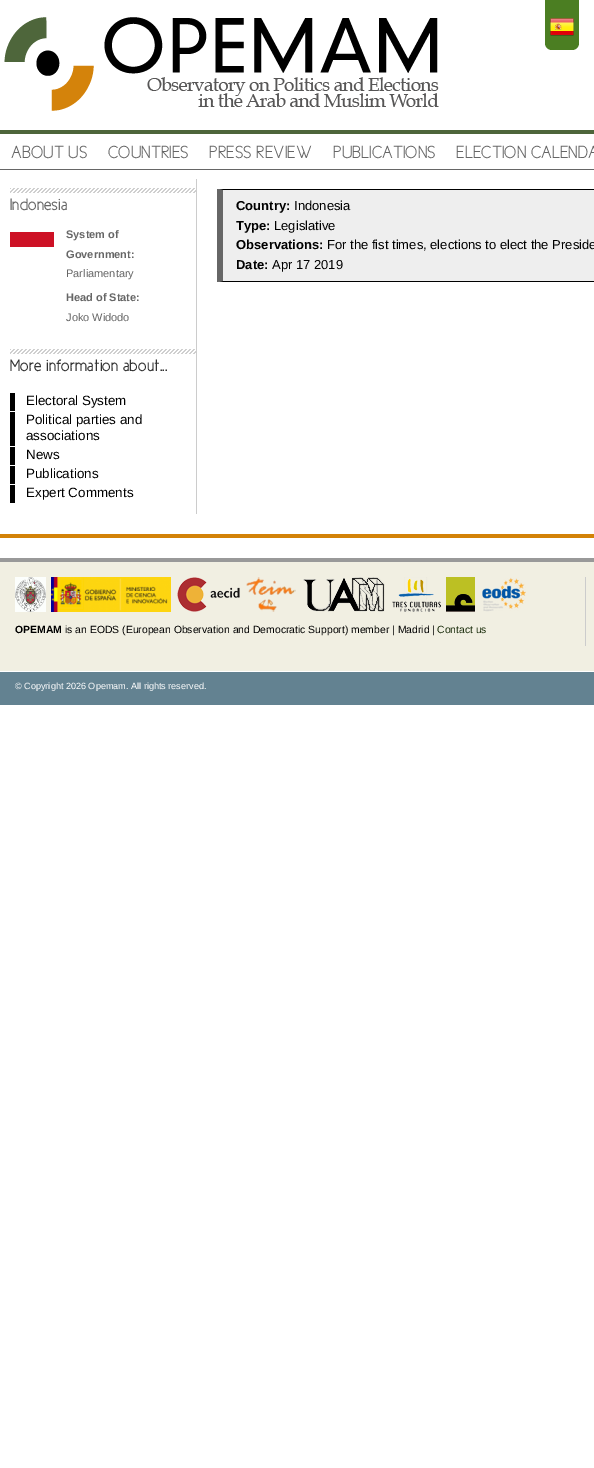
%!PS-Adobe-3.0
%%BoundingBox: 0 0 594 1468
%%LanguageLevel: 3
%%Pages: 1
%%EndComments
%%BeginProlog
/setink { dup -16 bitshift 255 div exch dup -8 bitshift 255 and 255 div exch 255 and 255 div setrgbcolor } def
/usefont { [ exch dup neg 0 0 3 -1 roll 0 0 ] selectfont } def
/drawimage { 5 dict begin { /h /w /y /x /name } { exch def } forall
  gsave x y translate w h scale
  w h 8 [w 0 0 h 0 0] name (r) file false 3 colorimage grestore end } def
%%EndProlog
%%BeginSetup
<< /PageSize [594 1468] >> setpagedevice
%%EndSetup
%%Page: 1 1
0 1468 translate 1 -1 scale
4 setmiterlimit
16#FFFFFF setink
0 0 594 1468 rectfill
(img1.raw) 4 17 435 94 drawimage
16#4B7E22 setink
545 0 moveto 579 0 lineto 579 43 lineto 579 47 576 50 572 50 curveto 552 50 lineto 548 50 545 47 545 43 curveto closepath fill
(img2.raw) 550 18 24 18 drawimage
[
    [0 534 594 4 16#D38207]
    [0 130 594 4 16#4D653A]
    [0 169 594 1 16#666666]
] { aload pop setink rectfill } forall
/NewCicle-Medium 17.75 usefont
[
    [(ABOUT US) 11 158]
    [(COUNTRIES) 108 158]
    [(PRESS REVIEW) 209 158]
    [(PUBLICATIONS) 333 158]
    [(ELECTION CALENDA) 456 158]
] { aload pop moveto show } forall
(img3.raw) 10 188 186 5 drawimage
/NewCicle-Bold 16.75 usefont
10 210 moveto (Indonesia) show
16#CD1125 setink
10 232 44 15 rectfill
/LiberationSans-Bold 11 usefont
16#666666 setink
66 238 moveto (System of) show
66 258 moveto (Government:) show
/LiberationSans-Regular 11 usefont
66 277 moveto (Parliamentary) show
/LiberationSans-Bold 11 usefont
66 301 moveto (Head of State:) show
/LiberationSans-Regular 11 usefont
66 321 moveto (Joko Widodo) show
(img3.raw) 10 349 186 5 drawimage
/NewCicle-Bold 16.75 usefont
16#333333 setink
10 371 moveto (More information about...) show
16#000000 setink
10 393 5 18 rectfill
/LiberationSans-Regular 13.4 usefont
26 405 moveto (Electoral System) show
10 412 5 34 rectfill
26 424 moveto (Political parties and) show
26 440 moveto (associations) show
10 447 5 18 rectfill
26 459 moveto (News) show
10 466 5 18 rectfill
26 478 moveto (Publications) show
10 485 5 18 rectfill
26 497 moveto (Expert Comments) show
16#CCCCCC setink
196 179 1 335 rectfill
16#EEEEEE setink
223 190 371 91 rectfill
16#000000 setink
217 189 moveto 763 189 lineto 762 190 lineto 223 190 lineto closepath fill
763 282 moveto 217 282 lineto 223 281 lineto 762 281 lineto closepath fill
16#666666 setink
217 282 moveto 217 189 lineto 223 190 lineto 223 281 lineto closepath fill
/LiberationSans-Bold 13 usefont
16#000000 setink
236 210 moveto (Country:) show
/LiberationSans-Regular 13 usefont
294 210 moveto (Indonesia) show
/LiberationSans-Bold 13 usefont
236 230 moveto (Type:) show
/LiberationSans-Regular 13 usefont
274 230 moveto (Legislative) show
/LiberationSans-Bold 13 usefont
236 249 moveto (Observations:) show
/LiberationSans-Regular 13 usefont
327 249 moveto (For the fist times, elections to elect the Preside) show
/LiberationSans-Bold 13 usefont
236 269 moveto (Date:) show
/LiberationSans-Regular 13 usefont
272 269 moveto (Apr 17 2019) show
[
    [0 562 594 109 16#F1EFE2]
    [0 558 594 4 16#999999]
    [585 577 1 69 16#CCCCCC]
] { aload pop setink rectfill } forall
(img4.raw) 15 577 31 35 drawimage
(img5.raw) 51 577 120 35 drawimage
(img6.raw) 177 577 63 35 drawimage
(img7.raw) 246 577 50 35 drawimage
(img8.raw) 303 577 82 35 drawimage
(img9.raw) 392 577 49 35 drawimage
(img10.raw) 446 577 29 35 drawimage
(img11.raw) 482 577 44 35 drawimage
/LiberationSans-Bold 10.4 usefont
16#000000 setink
15 633 moveto (OPEMAM) show
/LiberationSans-Regular 10.4 usefont
65 633 moveto (is an EODS \(European Observation and Democratic Support\) member | Madrid |) show
16#1B2D0C setink
437 633 moveto (Contact us) show
16#638291 setink
0 672 594 33 rectfill
/LiberationSans-Regular 9.1 usefont
16#FFFFFF setink
15 689 moveto (© Copyright 2026 Opemam. All rights reserved.) show
showpage
%%EOF
